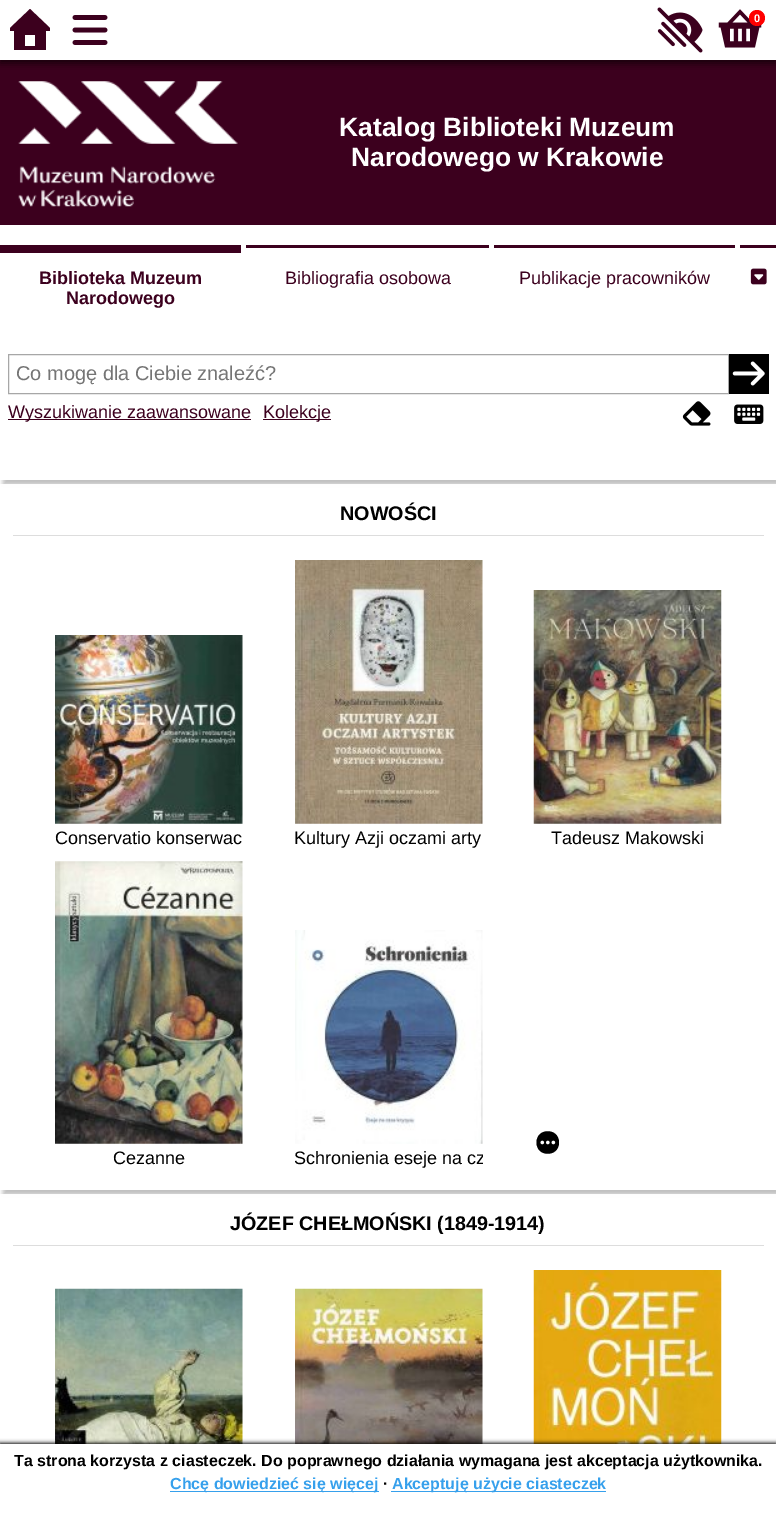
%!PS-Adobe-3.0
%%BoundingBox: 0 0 776 1516
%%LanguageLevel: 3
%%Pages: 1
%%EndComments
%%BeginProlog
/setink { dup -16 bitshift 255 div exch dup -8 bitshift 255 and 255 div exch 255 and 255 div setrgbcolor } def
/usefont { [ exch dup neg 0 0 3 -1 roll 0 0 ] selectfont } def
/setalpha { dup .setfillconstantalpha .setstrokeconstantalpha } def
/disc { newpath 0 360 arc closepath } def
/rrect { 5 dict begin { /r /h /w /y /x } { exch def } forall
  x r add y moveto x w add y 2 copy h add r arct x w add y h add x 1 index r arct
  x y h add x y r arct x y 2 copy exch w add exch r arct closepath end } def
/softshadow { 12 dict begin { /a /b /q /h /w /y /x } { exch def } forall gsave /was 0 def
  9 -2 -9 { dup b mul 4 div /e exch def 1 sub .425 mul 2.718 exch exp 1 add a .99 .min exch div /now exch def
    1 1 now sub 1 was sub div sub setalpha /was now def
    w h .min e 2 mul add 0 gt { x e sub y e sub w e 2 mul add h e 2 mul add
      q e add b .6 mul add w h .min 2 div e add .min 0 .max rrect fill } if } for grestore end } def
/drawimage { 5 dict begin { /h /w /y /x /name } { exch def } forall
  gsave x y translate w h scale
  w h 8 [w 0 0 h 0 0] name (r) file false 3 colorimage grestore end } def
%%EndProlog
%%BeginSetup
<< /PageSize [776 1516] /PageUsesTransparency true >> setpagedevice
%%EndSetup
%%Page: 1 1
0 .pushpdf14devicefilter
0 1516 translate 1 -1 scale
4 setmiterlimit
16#FFFFFF setink
0 0 776 1516 rectfill
16#3C001E setink
0 60 776 165 rectfill
gsave
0 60 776 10 rectclip
16#000000 setink
0 3 776 60 0 4 0.65 softshadow
grestore
50 31 moveto 46 31 lineto 46 50 lineto 14 50 lineto 14 31 lineto 10 31 lineto 10 28 lineto 30 9 lineto 50 28 lineto closepath 35 46 moveto 35 35 lineto 25 35 lineto 25 46 lineto closepath fill
(img1.raw) 72 15 36 30 drawimage
(img2.raw) 657 7 46 46 drawimage
(img3.raw) 718 9 44 39 drawimage
16#FF0000 setink
757 18 8 disc fill
/LiberationSans-Bold 11 usefont
16#FFFFFF setink
754 22 moveto (0) show
(img4.raw) 18 81 220 126 drawimage
/LiberationSans-Bold 26.4 usefont
339 136 moveto (Katalog Biblioteki Muzeum) show
351 166 moveto (Narodowego w Krakowie) show
gsave
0 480 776 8 rectclip
16#000000 setink
3 250 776 235 0 2.5 0.25 softshadow
grestore
16#3C001E setink
740 245 36 3 rectfill
(img5.raw) 750 268 17 17 drawimage
0 245 241 8 rectfill
/LiberationSans-Bold 18 usefont
39 284 moveto (Biblioteka Muzeum) show
66 304 moveto (Narodowego) show
246 245 243 3 rectfill
/LiberationSans-Regular 18 usefont
285 284 moveto (Bibliografia osobowa) show
494 245 241 3 rectfill
519 284 moveto (Publikacje pracowników) show
16#A7A7A7 setink
8.5 354.5 720 39 rectstroke
/LiberationSans-Regular 20 usefont
16#757575 setink
16 380 moveto (Co mogę dla Ciebie znaleźć?) show
16#000000 setink
729 354 40 40 rectfill
(img6.raw) 732 361 33 25 drawimage
16#3C001E setink
8 419 243 1 rectfill
/LiberationSans-Regular 18 usefont
8 418 moveto (Wyszukiwanie zaawansowane) show
263 419 68 1 rectfill
263 418 moveto (Kolekcje) show
(img7.raw) 682 401 29 25 drawimage
(img8.raw) 734 404 30 20 drawimage
gsave
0 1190 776 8 rectclip
16#000000 setink
3 489 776 706 0 2.5 0.25 softshadow
grestore
0.95 setalpha
16#FFFFFF setink
0 484 776 5 rectfill
1 setalpha
16#DDDDDD setink
13 535 751 1 rectfill
/LiberationSans-Bold 19.75 usefont
16#000000 setink
340 520 moveto (NOWOŚCI) show
(img9.raw) 55 635 188 189 drawimage
/LiberationSans-Regular 18 usefont
55 844 moveto (Conservatio konserwac) show
(img10.raw) 295 560 188 264 drawimage
294 844 moveto (Kultury Azji oczami arty) show
(img11.raw) 533 590 189 234 drawimage
551 844 moveto (Tadeusz Makowski) show
536.5 1142.5 moveto 536.5 1127.5 559 1127.5 559 1142.5 curveto 559 1157.5 536.5 1157.5 536.5 1142.5 curveto closepath fill
(img12.raw) 540 1140 16 5 drawimage
(img13.raw) 55 861 188 283 drawimage
113 1164 moveto (Cezanne) show
(img14.raw) 295 930 188 214 drawimage
gsave
295 1149 188 25 rectclip
294 1164 moveto (Schronienia eseje na cz) show
grestore
0.95 setalpha
16#FFFFFF setink
0 1194 776 5 rectfill
1 setalpha
16#DDDDDD setink
13 1245 751 1 rectfill
/LiberationSans-Bold 19.75 usefont
16#000000 setink
230 1230 moveto (JÓZEF CHEŁMOŃSKI \(1849-1914\)) show
(img15.raw) 55 1288 188 156 drawimage
(img16.raw) 295 1288 188 156 drawimage
(img17.raw) 533 1270 189 174 drawimage
0 1443 776 72 0 2 1 softshadow
16#FFFFFF setink
0 1444 776 72 rectfill
/LiberationSans-Bold 16 usefont
16#000000 setink
14 1466 moveto (Ta strona korzysta z ciasteczek. Do poprawnego działania wymagana jest akceptacja użytkownika.) show
16#36A0EC setink
170 1491 209 1 rectfill
170 1489 moveto (Chcę dowiedzieć się więcej) show
16#000000 setink
383 1489 moveto (∙) show
16#36A0EC setink
391 1491 215 1 rectfill
392 1489 moveto (Akceptuję użycie ciasteczek) show
.poppdf14devicefilter showpage
%%EOF
